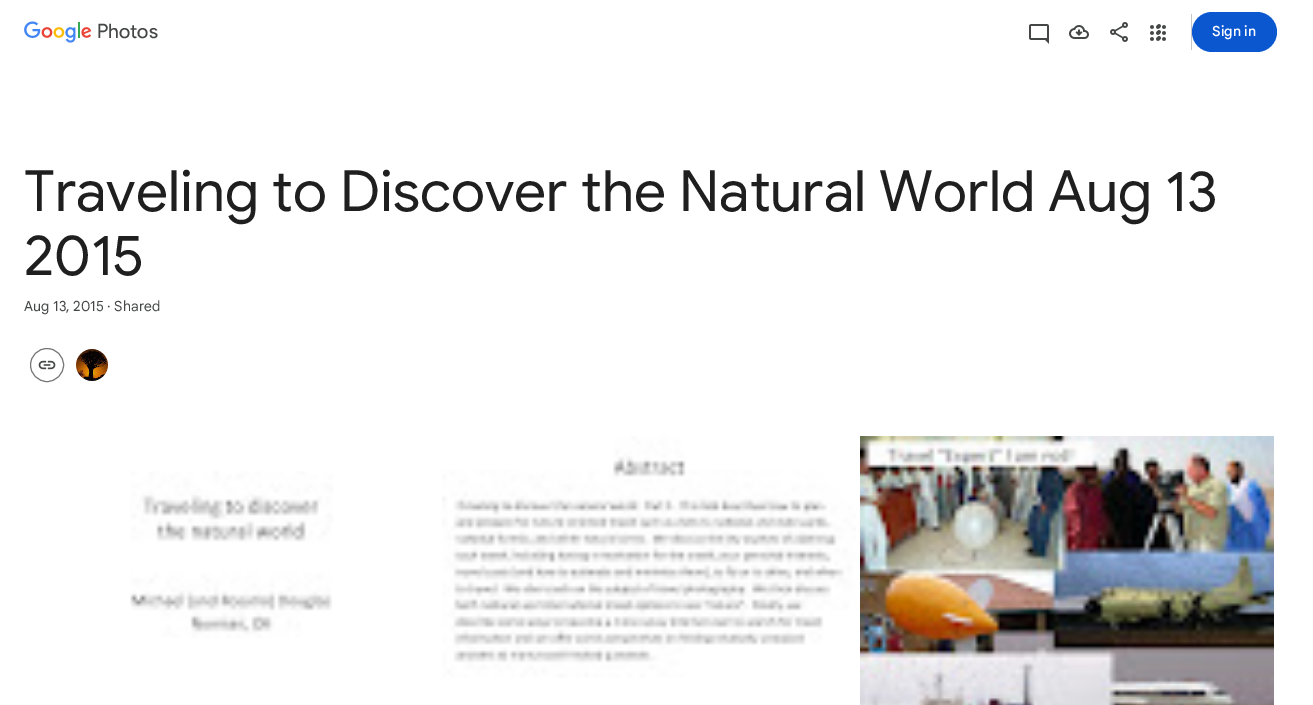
%!PS-Adobe-3.0
%%BoundingBox: 0 0 1313 705
%%LanguageLevel: 3
%%Pages: 1
%%EndComments
%%BeginProlog
/setink { dup -16 bitshift 255 div exch dup -8 bitshift 255 and 255 div exch 255 and 255 div setrgbcolor } def
/usefont { [ exch dup neg 0 0 3 -1 roll 0 0 ] selectfont } def
/disc { newpath 0 360 arc closepath } def
/rrect { 5 dict begin { /r /h /w /y /x } { exch def } forall
  x r add y moveto x w add y 2 copy h add r arct x w add y h add x 1 index r arct
  x y h add x y r arct x y 2 copy exch w add exch r arct closepath end } def
/drawimage { 5 dict begin { /h /w /y /x /name } { exch def } forall
  gsave x y translate w h scale
  w h 8 [w 0 0 h 0 0] name (r) file false 3 colorimage grestore end } def
%%EndProlog
%%BeginSetup
<< /PageSize [1313 705] >> setpagedevice
%%EndSetup
%%Page: 1 1
0 705 translate 1 -1 scale
4 setmiterlimit
16#FFFFFF setink
0 0 1313 705 rectfill
(img1.raw) 24 21 68 22 drawimage
/ProductSans-Regular 20 usefont
16#444746 setink
97 38 moveto (Photos) show
(img2.raw) 1029 24 20 20 drawimage
(img3.raw) 1069 25 20 14 drawimage
(img4.raw) 1110 22 18 20 drawimage
(img5.raw) 1157 24 4 16 drawimage
16#C4C7C5 setink
1191 14 1 36 rectfill
/GoogleSans-Regular 57 usefont
16#1F1F1F setink
24 211 moveto (Traveling to Discover the Natural World Aug 13) show
24 275 moveto (2015) show
/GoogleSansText-Regular 14 usefont
16#444746 setink
24 311 moveto (Aug 13, 2015 · Shared) show
16#747775 setink
47 365 16.5 disc stroke
(img6.raw) 38 360 18 10 drawimage
(img7.raw) 76 349 32 32 drawimage
(img8.raw) 130 471 203 167 drawimage
(img9.raw) 442 436 414 242 drawimage
(img10.raw) 860 436 414 269 drawimage
(img11.raw) 1150 25 16 16 drawimage
16#0B57D0 setink
1192 12 85 40 20 rrect fill
/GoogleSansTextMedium-Medium 14 usefont
16#FFFFFF setink
1212 36 moveto (Sign in) show
showpage
%%EOF
